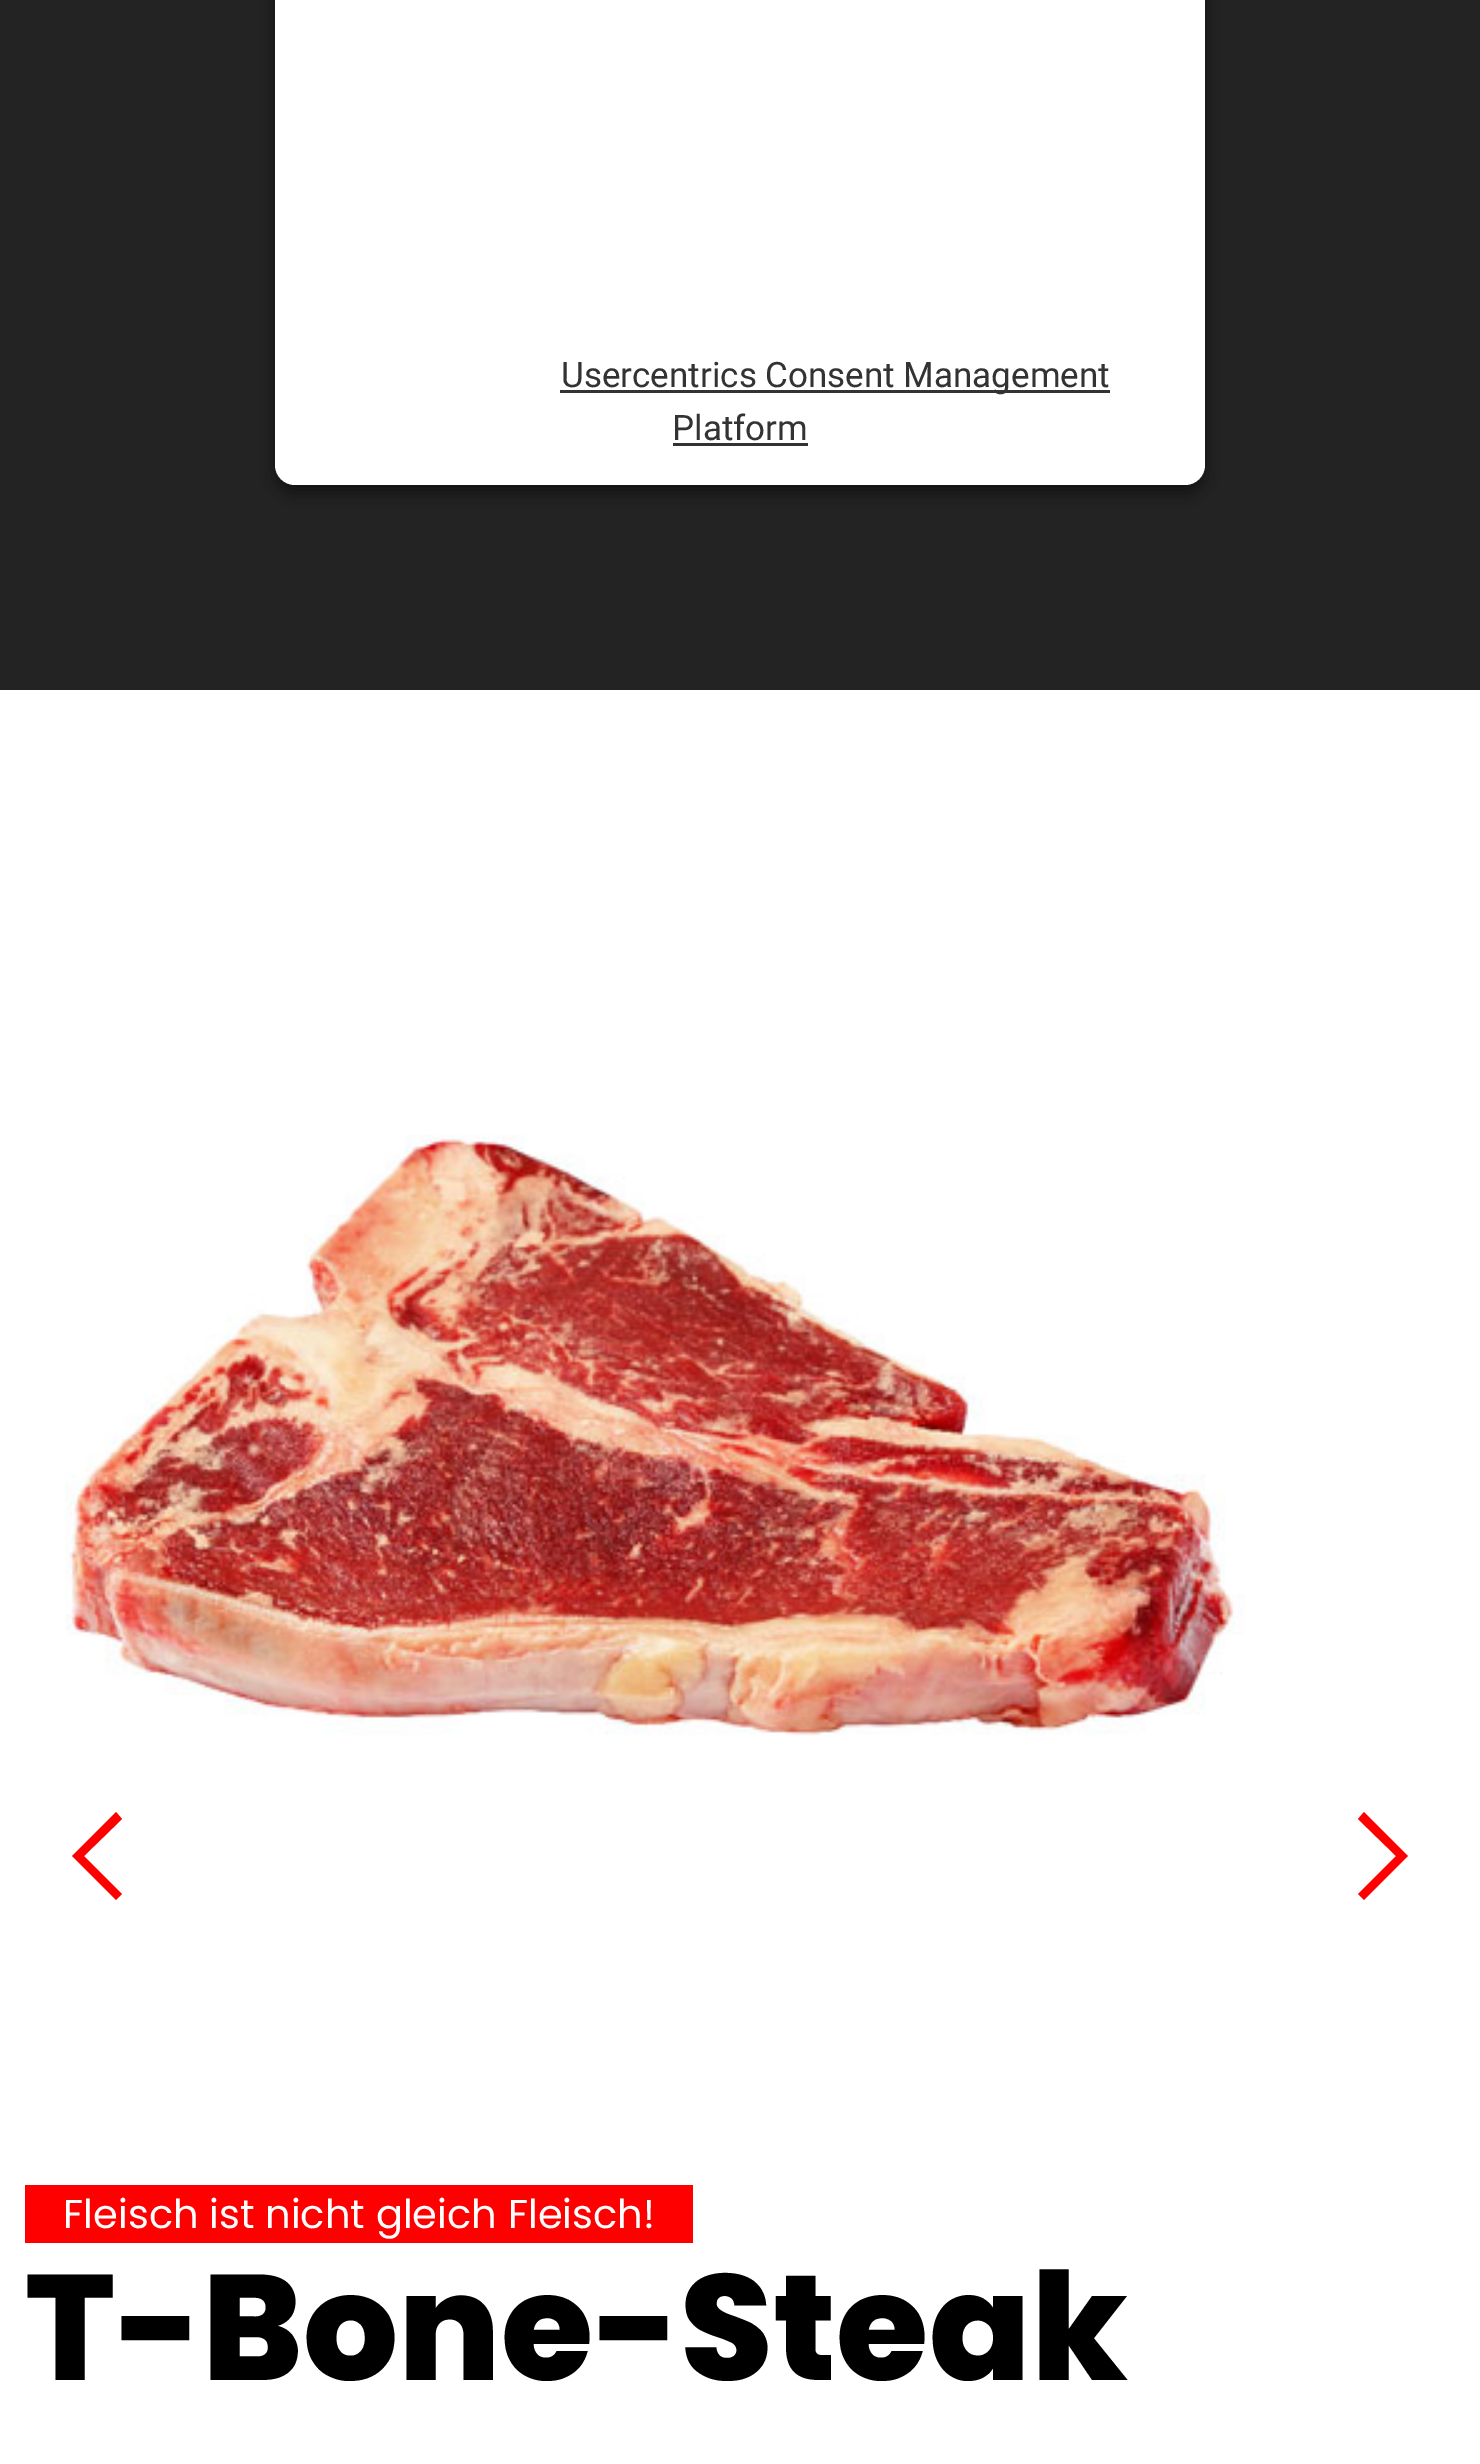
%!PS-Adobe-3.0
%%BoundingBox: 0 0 1480 2464
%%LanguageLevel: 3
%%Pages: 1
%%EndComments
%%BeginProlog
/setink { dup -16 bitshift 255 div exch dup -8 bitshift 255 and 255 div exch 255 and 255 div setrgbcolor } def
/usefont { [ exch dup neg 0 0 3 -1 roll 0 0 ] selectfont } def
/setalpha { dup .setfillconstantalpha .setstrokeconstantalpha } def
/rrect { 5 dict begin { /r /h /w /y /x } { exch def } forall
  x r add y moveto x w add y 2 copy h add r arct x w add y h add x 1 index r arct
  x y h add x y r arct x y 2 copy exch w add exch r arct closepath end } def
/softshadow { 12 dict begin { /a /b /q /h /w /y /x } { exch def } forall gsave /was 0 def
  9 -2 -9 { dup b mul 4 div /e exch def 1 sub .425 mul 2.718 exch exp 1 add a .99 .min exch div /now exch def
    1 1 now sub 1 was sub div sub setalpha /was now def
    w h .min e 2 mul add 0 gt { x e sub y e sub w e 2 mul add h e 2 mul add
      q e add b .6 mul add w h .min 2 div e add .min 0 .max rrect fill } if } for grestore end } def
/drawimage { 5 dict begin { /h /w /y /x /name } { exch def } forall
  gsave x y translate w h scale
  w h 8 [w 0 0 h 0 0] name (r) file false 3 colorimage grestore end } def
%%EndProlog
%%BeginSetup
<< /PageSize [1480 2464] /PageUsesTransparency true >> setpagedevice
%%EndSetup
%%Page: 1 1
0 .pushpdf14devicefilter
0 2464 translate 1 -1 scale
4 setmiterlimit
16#232323 setink
0 0 1480 2464 rectfill
16#000000 setink
275 -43 930 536 20 7.5 0.5 softshadow
16#FFFFFF setink
275 -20 930 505 20 rrect fill
16#333333 setink
560 390 550 3 rectfill
/Roboto-Regular 35 usefont
561 387 moveto (Usercentrics Consent Management) show
672 440 moveto (Platform) show
673 443 135 3 rectfill
16#FFFFFF setink
0 690 1480 1774 rectfill
16#FF0000 setink
72 1856 moveto 116 1812 lineto 122 1819 lineto 84 1856 lineto 122 1894 lineto 116 1900 lineto closepath fill
1408 1856 moveto 1364 1812 lineto 1358 1819 lineto 1396 1856 lineto 1358 1894 lineto 1364 1900 lineto closepath fill
(img1.raw) 65 1134 1180 602 drawimage
25 2185 668 58 rectfill
/Poppins-Regular 40 usefont
16#FFFFFF setink
63 2228 moveto (Fleisch ist nicht gleich Fleisch!) show
/Poppins-ExtraBold 150 usefont
16#000000 setink
25 2380 moveto (T-Bone-Steak) show
.poppdf14devicefilter showpage
%%EOF
